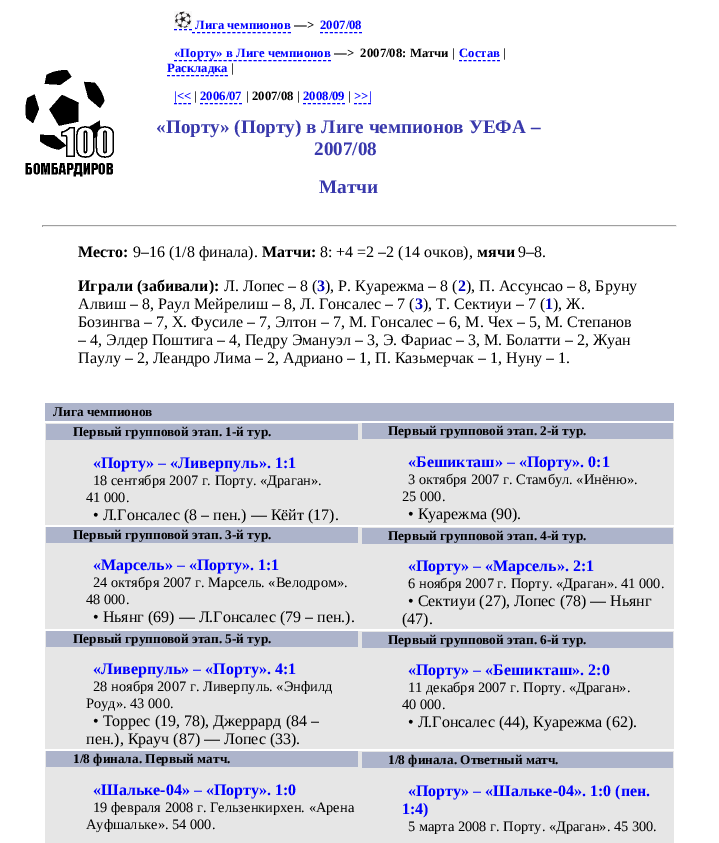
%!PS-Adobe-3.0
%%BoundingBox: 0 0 719 843
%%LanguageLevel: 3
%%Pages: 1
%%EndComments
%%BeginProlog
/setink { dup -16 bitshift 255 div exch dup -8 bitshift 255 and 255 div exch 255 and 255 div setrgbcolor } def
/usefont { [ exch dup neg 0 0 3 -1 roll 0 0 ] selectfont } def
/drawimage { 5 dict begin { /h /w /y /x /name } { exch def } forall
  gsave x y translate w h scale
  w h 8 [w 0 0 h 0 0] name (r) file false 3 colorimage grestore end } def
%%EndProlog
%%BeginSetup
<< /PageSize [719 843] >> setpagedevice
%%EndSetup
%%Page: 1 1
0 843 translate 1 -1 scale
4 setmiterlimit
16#FFFFFF setink
0 0 719 843 rectfill
(img1.raw) 25 70 89 107 drawimage
(img2.raw) 174 11 18 18 drawimage
/LiberationSerif-Bold 12.75 usefont
16#0000FF setink
195 29 moveto (Лига чемпионов) show
[3 2] 0 setdash
174 29.5 moveto 192 29.5 lineto stroke
[3 2.05] 0 setdash
192 32.5 moveto 291 32.5 lineto stroke
16#000000 setink
294 29 moveto (—>) show
16#0000FF setink
320 29 moveto (2007/08) show
[3 1.88] 0 setdash
320 32.5 moveto 362 32.5 lineto stroke
174 57 moveto («Порту» в Лиге чемпионов) show
[3 1.97] 0 setdash
174 60.5 moveto 331 60.5 lineto stroke
16#000000 setink
334 57 moveto (—>  2007/08: Матчи |) show
16#0000FF setink
459 57 moveto (Состав) show
[3 1.75] 0 setdash
459 60.5 moveto 500 60.5 lineto stroke
16#000000 setink
503 57 moveto (|) show
16#0000FF setink
167 72 moveto (Раскладка) show
[3 1.83] 0 setdash
167 75.5 moveto 228 75.5 lineto stroke
16#000000 setink
231 72 moveto (|) show
16#0000FF setink
174 100 moveto (|<<) show
[3 1.67] 0 setdash
174 103.5 moveto 191 103.5 lineto stroke
16#000000 setink
194 100 moveto (|) show
16#0000FF setink
200 100 moveto (2006/07) show
[3 1.88] 0 setdash
200 103.5 moveto 242 103.5 lineto stroke
16#000000 setink
246 100 moveto (| 2007/08 |) show
16#0000FF setink
303 100 moveto (2008/09) show
303 103.5 moveto 345 103.5 lineto stroke
16#000000 setink
348 100 moveto (|) show
16#0000FF setink
354 100 moveto (>>|) show
[3 1.67] 0 setdash
354 103.5 moveto 371 103.5 lineto stroke
/LiberationSerif-Bold 19.2 usefont
16#3939AC setink
[
    [(«Порту» \(Порту\) в Лиге чемпионов УЕФА –) 156 133]
    [(2007/08) 314 155]
    [(Матчи) 319 193]
] { aload pop moveto show } forall
[
    [42 225 635 1 16#9F9F9F]
    [676 225 1 2 16#EEEEEE]
    [42 226 635 1 16#EEEEEE]
    [42 225 1 2 16#9F9F9F]
] { aload pop setink rectfill } forall
/LiberationSerif-Bold 16 usefont
16#000000 setink
78 257 moveto (Место:) show
/LiberationSerif-Regular 16 usefont
133 257 moveto (9–16 \(1/8 финала\).) show
/LiberationSerif-Bold 16 usefont
262 257 moveto (Матчи:) show
/LiberationSerif-Regular 16 usefont
320 257 moveto (8: +4 =2 –2 \(14 очков\),) show
/LiberationSerif-Bold 16 usefont
477 257 moveto (мячи) show
/LiberationSerif-Regular 16 usefont
518 257 moveto (9–8.) show
/LiberationSerif-Bold 16 usefont
78 291 moveto (Играли \(забивали\):) show
/LiberationSerif-Regular 16 usefont
224 291 moveto (Л. Лопес – 8 \() show
/LiberationSerif-Bold 16 usefont
16#0000BE setink
317 291 moveto (3) show
/LiberationSerif-Regular 16 usefont
16#000000 setink
325 291 moveto (\), Р. Куарежма – 8 \() show
/LiberationSerif-Bold 16 usefont
16#0000BE setink
458 291 moveto (2) show
/LiberationSerif-Regular 16 usefont
16#000000 setink
466 291 moveto (\), П. Ассунсао – 8, Бруну) show
78 309 moveto (Алвиш – 8, Раул Мейрелиш – 8, Л. Гонсалес – 7 \() show
/LiberationSerif-Bold 16 usefont
16#0000BE setink
415 309 moveto (3) show
/LiberationSerif-Regular 16 usefont
16#000000 setink
423 309 moveto (\), Т. Сектиуи – 7 \() show
/LiberationSerif-Bold 16 usefont
16#0000BE setink
545 309 moveto (1) show
/LiberationSerif-Regular 16 usefont
16#000000 setink
[
    [(\), Ж.) 553 309]
    [(Бозингва – 7, Х. Фусиле – 7, Элтон – 7, М. Гонсалес – 6, М. Чех – 5, М. Степанов) 78 327]
    [(– 4, Элдер Поштига – 4, Педру Эмануэл – 3, Э. Фариас – 3, М. Болатти – 2, Жуан) 78 345]
    [(Паулу – 2, Леандро Лима – 2, Адриано – 1, П. Казьмерчак – 1, Нуну – 1.) 78 363]
] { aload pop moveto show } forall
16#ADB4CB setink
45 403 629 18 rectfill
/LiberationSerif-Bold 13.3 usefont
16#000000 setink
53 416 moveto (Лига чемпионов) show
16#E6E6E6 setink
45 423 629 102 rectfill
16#ADB4CB setink
46 424 312 16 rectfill
16#000000 setink
73 436 moveto (Первый групповой этап. 1-й тур.) show
/LiberationSerif-Bold 16 usefont
16#0000FF setink
93 468 moveto («Порту» – «Ливерпуль». 1:1) show
/LiberationSerif-Regular 14.4 usefont
16#000000 setink
93 485 moveto (18 сентября 2007 г. Порту. «Драган».) show
86 502 moveto (41 000.) show
/LiberationSerif-Regular 16 usefont
93 520 moveto (• Л.Гонсалес \(8 – пен.\) — Кёйт \(17\).) show
16#ADB4CB setink
362 423 311 16 rectfill
/LiberationSerif-Bold 13.3 usefont
16#000000 setink
388 435 moveto (Первый групповой этап. 2-й тур.) show
/LiberationSerif-Bold 16 usefont
16#0000FF setink
408 467 moveto («Бешикташ» – «Порту». 0:1) show
/LiberationSerif-Regular 14.4 usefont
16#000000 setink
408 484 moveto (3 октября 2007 г. Стамбул. «Инёню».) show
402 501 moveto (25 000.) show
/LiberationSerif-Regular 16 usefont
408 519 moveto (• Куарежма \(90\).) show
16#E6E6E6 setink
45 527 629 102 rectfill
16#ADB4CB setink
46 527 312 16 rectfill
/LiberationSerif-Bold 13.3 usefont
16#000000 setink
73 539 moveto (Первый групповой этап. 3-й тур.) show
/LiberationSerif-Bold 16 usefont
16#0000FF setink
93 570 moveto («Марсель» – «Порту». 1:1) show
/LiberationSerif-Regular 14.4 usefont
16#000000 setink
93 587 moveto (24 октября 2007 г. Марсель. «Велодром».) show
86 604 moveto (48 000.) show
/LiberationSerif-Regular 16 usefont
93 622 moveto (• Ньянг \(69\) — Л.Гонсалес \(79 – пен.\).) show
16#ADB4CB setink
362 528 311 16 rectfill
/LiberationSerif-Bold 13.3 usefont
16#000000 setink
388 540 moveto (Первый групповой этап. 4-й тур.) show
/LiberationSerif-Bold 16 usefont
16#0000FF setink
408 571 moveto («Порту» – «Марсель». 2:1) show
/LiberationSerif-Regular 14.4 usefont
16#000000 setink
408 588 moveto (6 ноября 2007 г. Порту. «Драган». 41 000.) show
/LiberationSerif-Regular 16 usefont
408 606 moveto (• Сектиуи \(27\), Лопес \(78\) — Ньянг) show
402 624 moveto (\(47\).) show
16#E6E6E6 setink
45 631 629 118 rectfill
16#ADB4CB setink
46 631 312 16 rectfill
/LiberationSerif-Bold 13.3 usefont
16#000000 setink
73 643 moveto (Первый групповой этап. 5-й тур.) show
/LiberationSerif-Bold 16 usefont
16#0000FF setink
93 674 moveto («Ливерпуль» – «Порту». 4:1) show
/LiberationSerif-Regular 14.4 usefont
16#000000 setink
93 691 moveto (28 ноября 2007 г. Ливерпуль. «Энфилд) show
86 708 moveto (Роуд». 43 000.) show
/LiberationSerif-Regular 16 usefont
93 726 moveto (• Торрес \(19, 78\), Джеррард \(84 –) show
86 744 moveto (пен.\), Крауч \(87\) — Лопес \(33\).) show
16#ADB4CB setink
362 632 311 16 rectfill
/LiberationSerif-Bold 13.3 usefont
16#000000 setink
388 644 moveto (Первый групповой этап. 6-й тур.) show
/LiberationSerif-Bold 16 usefont
16#0000FF setink
408 675 moveto («Порту» – «Бешикташ». 2:0) show
/LiberationSerif-Regular 14.4 usefont
16#000000 setink
408 692 moveto (11 декабря 2007 г. Порту. «Драган».) show
402 709 moveto (40 000.) show
/LiberationSerif-Regular 16 usefont
408 727 moveto (• Л.Гонсалес \(44\), Куарежма \(62\).) show
16#E6E6E6 setink
45 751 629 92 rectfill
16#ADB4CB setink
46 751 312 16 rectfill
/LiberationSerif-Bold 13.3 usefont
16#000000 setink
73 763 moveto (1/8 финала. Первый матч.) show
/LiberationSerif-Bold 16 usefont
16#0000FF setink
93 795 moveto («Шальке-04» – «Порту». 1:0) show
/LiberationSerif-Regular 14.4 usefont
16#000000 setink
93 812 moveto (19 февраля 2008 г. Гельзенкирхен. «Арена) show
86 829 moveto (Ауфшальке». 54 000.) show
16#ADB4CB setink
362 752 311 16 rectfill
/LiberationSerif-Bold 13.3 usefont
16#000000 setink
388 764 moveto (1/8 финала. Ответный матч.) show
/LiberationSerif-Bold 16 usefont
16#0000FF setink
408 796 moveto («Порту» – «Шальке-04». 1:0 \(пен.) show
402 814 moveto (1:4\)) show
/LiberationSerif-Regular 14.4 usefont
16#000000 setink
408 831 moveto (5 марта 2008 г. Порту. «Драган». 45 300.) show
showpage
%%EOF
